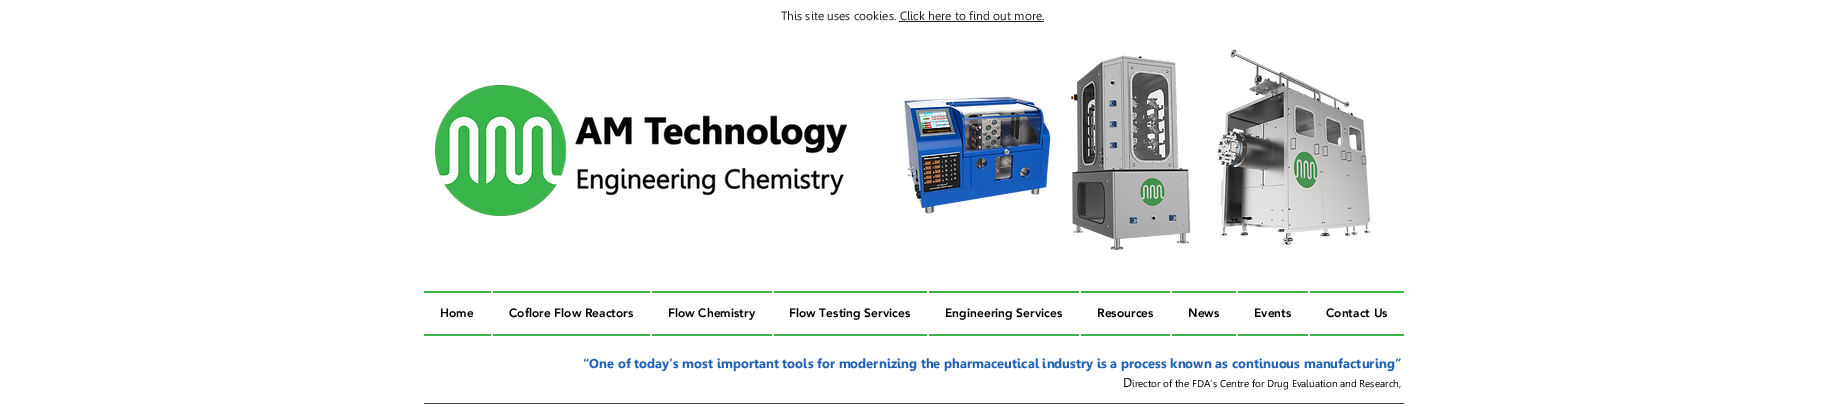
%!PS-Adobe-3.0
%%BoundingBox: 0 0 1827 411
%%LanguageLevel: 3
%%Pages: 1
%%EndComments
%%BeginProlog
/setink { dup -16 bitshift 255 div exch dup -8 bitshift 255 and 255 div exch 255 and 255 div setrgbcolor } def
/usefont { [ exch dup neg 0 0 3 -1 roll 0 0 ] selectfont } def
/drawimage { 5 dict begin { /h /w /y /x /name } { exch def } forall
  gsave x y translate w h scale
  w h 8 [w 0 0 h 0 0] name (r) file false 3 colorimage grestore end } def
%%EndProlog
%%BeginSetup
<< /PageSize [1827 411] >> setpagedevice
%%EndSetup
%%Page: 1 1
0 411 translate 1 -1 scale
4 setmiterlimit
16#FFFFFF setink
0 0 1827 411 rectfill
/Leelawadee-Regular 12 usefont
16#242424 setink
781 20 moveto (This site uses cookies. Click here to find out more.) show
899 21 145 1 rectfill
(img1.raw) 435 85 412 131 drawimage
(img2.raw) 904 96 147 118 drawimage
(img3.raw) 1071 55 120 196 drawimage
(img4.raw) 1216 49 155 196 drawimage
16#39B54A setink
424 291 67 2 rectfill
424 334 67 2 rectfill
/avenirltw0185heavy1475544-Black 12 usefont
16#000000 setink
440 317 moveto (Home) show
16#39B54A setink
493 291 157 2 rectfill
493 334 157 2 rectfill
16#000000 setink
509 317 moveto (Coflore Flow Reactors) show
16#39B54A setink
652 291 120 2 rectfill
652 334 120 2 rectfill
16#000000 setink
668 317 moveto (Flow Chemistry) show
16#39B54A setink
774 291 153 2 rectfill
774 334 153 2 rectfill
16#000000 setink
789 317 moveto (Flow Testing Services) show
16#39B54A setink
929 291 150 2 rectfill
929 334 150 2 rectfill
16#000000 setink
945 317 moveto (Engineering Services) show
16#39B54A setink
1081 291 89 2 rectfill
1081 334 89 2 rectfill
16#000000 setink
1097 317 moveto (Resources) show
16#39B54A setink
1172 291 64 2 rectfill
1172 334 64 2 rectfill
16#000000 setink
1188 317 moveto (News) show
16#39B54A setink
1238 291 70 2 rectfill
1238 334 70 2 rectfill
16#000000 setink
1254 317 moveto (Events) show
16#39B54A setink
1310 291 94 2 rectfill
1310 334 94 2 rectfill
16#000000 setink
1326 317 moveto (Contact Us) show
/Leelawadee-Bold 13 usefont
16#2061B5 setink
583 368 moveto (“One of today's most important tools for modernizing the pharmaceutical industry is a process known as continuous manufacturing”) show
/Leelawadee-Regular 13 usefont
16#000000 setink
1123 387 moveto (D) show
/Leelawadee-Regular 10 usefont
1132 387 moveto (irector of the FDA’s Centre for Drug Evaluation and Research,) show
16#424242 setink
424 403 980 1 rectfill
showpage
%%EOF
